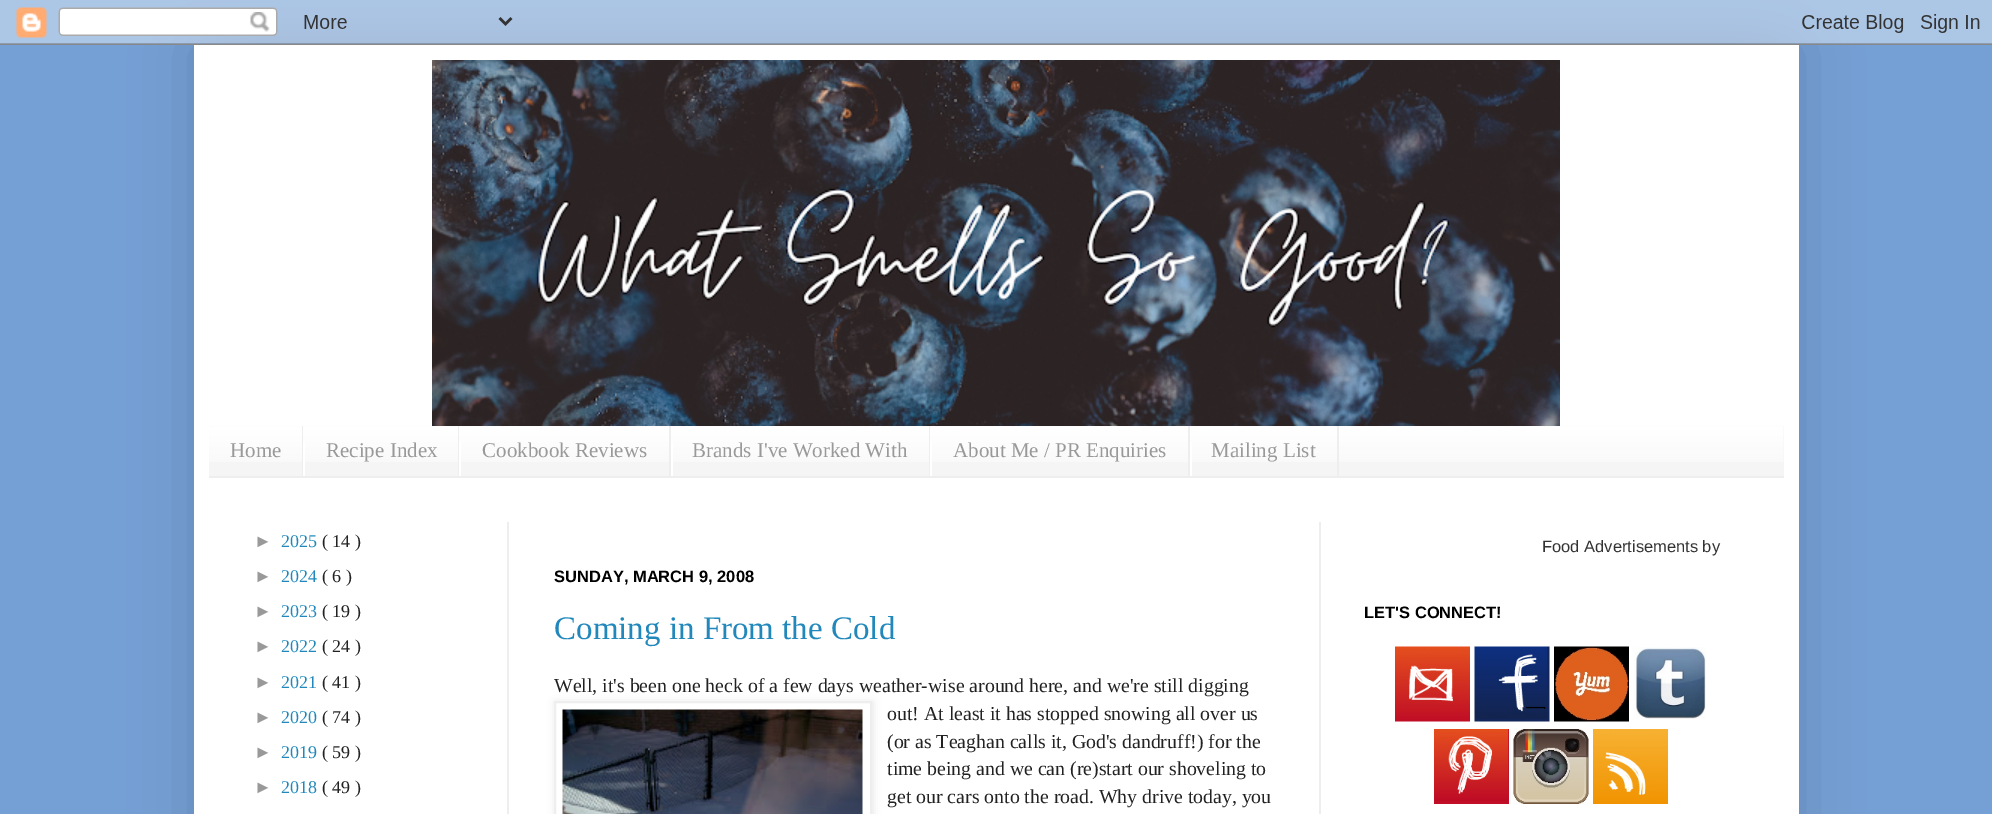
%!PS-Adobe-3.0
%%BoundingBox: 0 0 1992 814
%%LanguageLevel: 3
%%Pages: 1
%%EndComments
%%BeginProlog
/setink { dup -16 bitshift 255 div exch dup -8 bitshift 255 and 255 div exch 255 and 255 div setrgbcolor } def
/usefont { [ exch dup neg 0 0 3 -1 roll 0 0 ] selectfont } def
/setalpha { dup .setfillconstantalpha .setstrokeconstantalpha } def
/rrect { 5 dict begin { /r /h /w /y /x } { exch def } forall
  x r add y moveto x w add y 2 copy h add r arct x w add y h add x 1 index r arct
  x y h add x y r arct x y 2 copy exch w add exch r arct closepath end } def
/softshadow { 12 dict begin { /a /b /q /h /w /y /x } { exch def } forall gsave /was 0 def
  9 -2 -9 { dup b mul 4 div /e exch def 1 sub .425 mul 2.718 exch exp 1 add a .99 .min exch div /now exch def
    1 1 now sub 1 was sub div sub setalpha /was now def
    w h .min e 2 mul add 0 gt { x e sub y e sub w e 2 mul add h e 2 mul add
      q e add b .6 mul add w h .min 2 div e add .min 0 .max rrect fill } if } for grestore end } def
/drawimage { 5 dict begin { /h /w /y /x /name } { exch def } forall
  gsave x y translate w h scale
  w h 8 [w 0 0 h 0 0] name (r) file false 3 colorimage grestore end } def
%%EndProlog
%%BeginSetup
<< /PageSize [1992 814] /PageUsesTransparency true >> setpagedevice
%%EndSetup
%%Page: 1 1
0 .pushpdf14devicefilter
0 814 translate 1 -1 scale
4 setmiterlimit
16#75A0D5 setink
0 0 1992 814 rectfill
16#000000 setink
194 45 1605 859 0 30 0.15 softshadow
(img1.raw) 0 0 1992 45 drawimage
16#FFFFFF setink
194 45 1605 769 rectfill
(img2.raw) 432 60 1128 366 drawimage
16#F5F5F5 setink
209 426 1575 50 rectfill
(img3.raw) 209 426 1575 36 drawimage
16#EEEEEE setink
209 476 1575 2 rectfill
302 426 1 50 rectfill
/LiberationSerif-Regular 21 usefont
16#999999 setink
230 457 moveto (Home) show
16#EEEEEE setink
458 426 1 50 rectfill
16#FFFFFF setink
303 442 2 34 rectfill
16#999999 setink
326 457 moveto (Recipe Index) show
16#EEEEEE setink
669 426 2 50 rectfill
16#FFFFFF setink
459 442 2 34 rectfill
16#999999 setink
482 457 moveto (Cookbook Reviews) show
16#EEEEEE setink
929 426 1 50 rectfill
16#FFFFFF setink
671 442 2 34 rectfill
16#999999 setink
692 457 moveto (Brands I've Worked With) show
16#EEEEEE setink
1188 426 2 50 rectfill
16#FFFFFF setink
930 442 2 34 rectfill
16#999999 setink
953 457 moveto (About Me / PR Enquiries) show
16#EEEEEE setink
1337 426 2 50 rectfill
16#FFFFFF setink
1190 442 2 34 rectfill
16#999999 setink
1211 457 moveto (Mailing List) show
16#EEEEEE setink
507 522 2 292 rectfill
1319 522 2 292 rectfill
/LiberationSans-Regular 18 usefont
16#999999 setink
254 547 moveto (►) show
/LiberationSerif-Regular 18 usefont
16#2288BB setink
281 547 moveto (2025) show
16#222222 setink
322 547 moveto (\( 14 \)) show
/LiberationSans-Regular 18 usefont
16#999999 setink
254 582 moveto (►) show
/LiberationSerif-Regular 18 usefont
16#2288BB setink
281 582 moveto (2024) show
16#222222 setink
322 582 moveto (\( 6 \)) show
/LiberationSans-Regular 18 usefont
16#999999 setink
254 617 moveto (►) show
/LiberationSerif-Regular 18 usefont
16#2288BB setink
281 617 moveto (2023) show
16#222222 setink
322 617 moveto (\( 19 \)) show
/LiberationSans-Regular 18 usefont
16#999999 setink
254 652 moveto (►) show
/LiberationSerif-Regular 18 usefont
16#2288BB setink
281 652 moveto (2022) show
16#222222 setink
322 652 moveto (\( 24 \)) show
/LiberationSans-Regular 18 usefont
16#999999 setink
254 688 moveto (►) show
/LiberationSerif-Regular 18 usefont
16#2288BB setink
281 688 moveto (2021) show
16#222222 setink
322 688 moveto (\( 41 \)) show
/LiberationSans-Regular 18 usefont
16#999999 setink
254 723 moveto (►) show
/LiberationSerif-Regular 18 usefont
16#2288BB setink
281 723 moveto (2020) show
16#222222 setink
322 723 moveto (\( 74 \)) show
/LiberationSans-Regular 18 usefont
16#999999 setink
254 758 moveto (►) show
/LiberationSerif-Regular 18 usefont
16#2288BB setink
281 758 moveto (2019) show
16#222222 setink
322 758 moveto (\( 59 \)) show
/LiberationSans-Regular 18 usefont
16#999999 setink
254 793 moveto (►) show
/LiberationSerif-Regular 18 usefont
16#2288BB setink
281 793 moveto (2018) show
16#222222 setink
322 793 moveto (\( 49 \)) show
/LiberationSans-Bold 16.5 usefont
16#000000 setink
554 582 moveto (SUNDAY, MARCH 9, 2008) show
/LiberationSerif-Regular 33 usefont
16#2288BB setink
554 639 moveto (Coming in From the Cold) show
/LiberationSerif-Regular 19.8 usefont
16#222222 setink
554 692 moveto (Well, it's been one heck of a few days weather-wise around here, and we're still digging) show
16#000000 setink
555 702 318 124 0 4 0.1 softshadow
16#FFFFFF setink
555 702 moveto 871 702 lineto 871 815 lineto 555 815 lineto closepath gsave fill grestore
16#EEEEEE setink
2 setlinewidth
stroke
(img4.raw) 562 709 301 105 drawimage
16#222222 setink
[
    [(out! At least it has stopped snowing all over us) 887 720]
    [(\(or as Teaghan calls it, God's dandruff!\) for the) 887 748]
    [(time being and we can \(re\)start our shoveling to) 887 775]
    [(get our cars onto the road. Why drive today, you) 887 803]
] { aload pop moveto show } forall
/LiberationSans-Regular 16.5 usefont
16#333333 setink
1542 552 moveto (Food Advertisements by) show
/LiberationSans-Bold 16.5 usefont
16#000000 setink
1364 618 moveto (LET'S CONNECT!) show
(img5.raw) 1395 646 75 76 drawimage
(img6.raw) 1474 646 76 76 drawimage
(img7.raw) 1554 646 75 76 drawimage
(img8.raw) 1633 647 73 72 drawimage
(img9.raw) 1434 729 75 75 drawimage
(img10.raw) 1513 729 76 75 drawimage
(img11.raw) 1593 729 75 75 drawimage
.poppdf14devicefilter showpage
%%EOF
